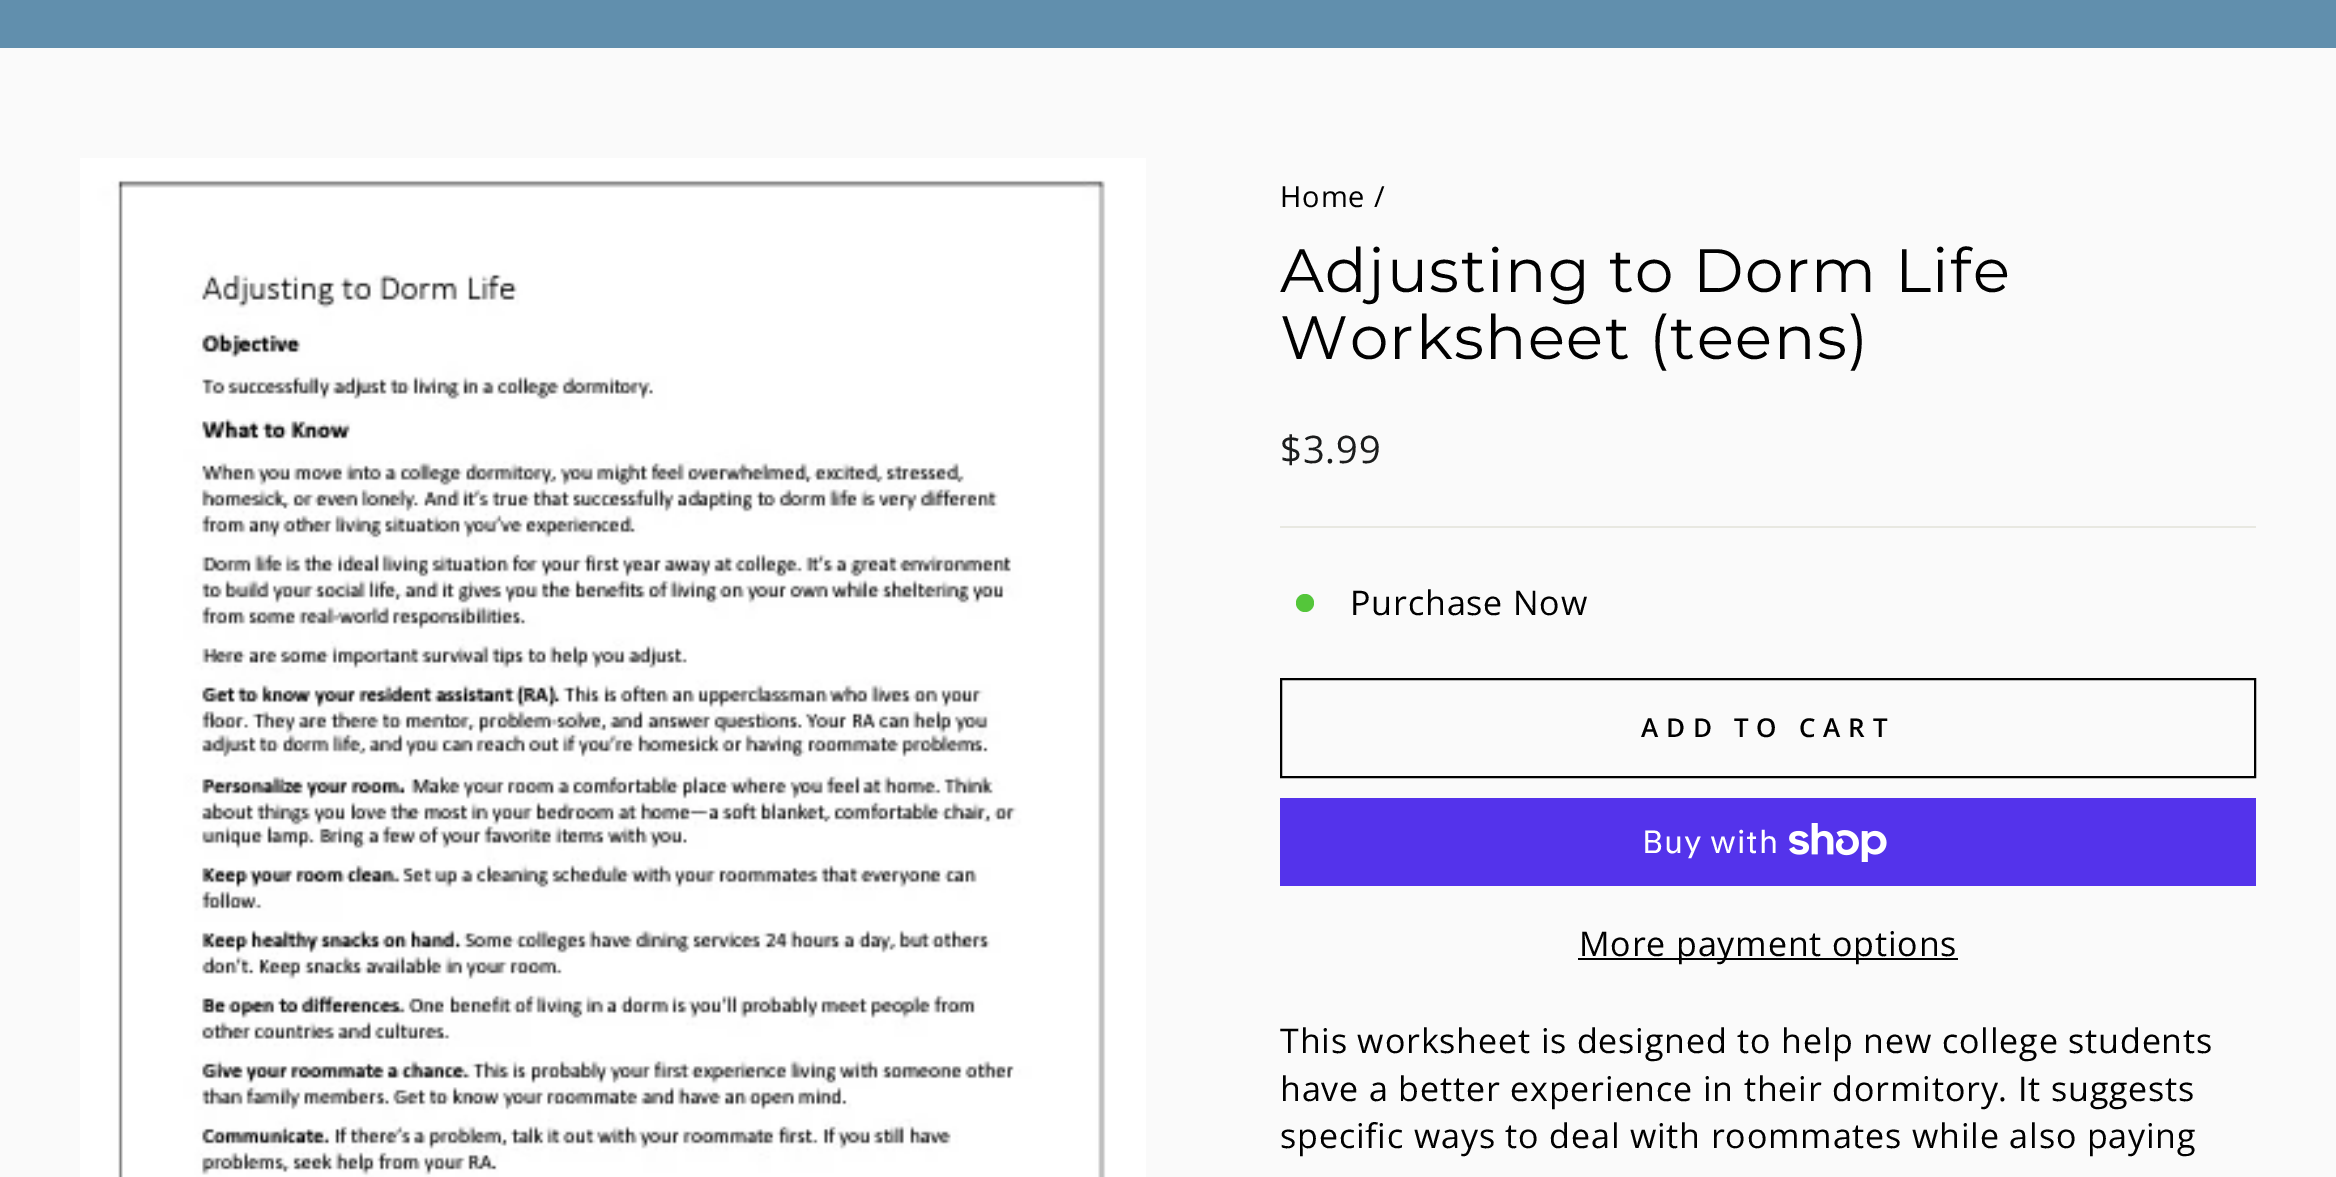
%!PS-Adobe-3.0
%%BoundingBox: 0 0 2336 1177
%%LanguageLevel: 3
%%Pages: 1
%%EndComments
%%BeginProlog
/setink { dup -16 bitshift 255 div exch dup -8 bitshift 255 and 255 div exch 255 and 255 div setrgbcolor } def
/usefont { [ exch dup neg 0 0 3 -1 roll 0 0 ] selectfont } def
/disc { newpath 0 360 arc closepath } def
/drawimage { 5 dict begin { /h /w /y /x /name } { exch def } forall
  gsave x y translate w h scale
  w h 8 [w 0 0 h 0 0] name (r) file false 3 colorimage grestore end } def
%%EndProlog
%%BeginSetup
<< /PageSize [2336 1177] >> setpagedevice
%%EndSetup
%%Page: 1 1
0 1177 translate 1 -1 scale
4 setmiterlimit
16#FAFAFA setink
0 0 2336 1177 rectfill
16#618FAD setink
0 0 2336 48 rectfill
(img1.raw) 80 158 1066 1019 drawimage
/OpenSans-Regular 29 usefont
16#000000 setink
1280 207 moveto 0.85 0 (Home /) ashow
/Montserrat-Regular 61.25 usefont
1280 292 moveto 1.5 0 (Adjusting to Dorm Life) ashow
1280 359 moveto 1.5 0 (Worksheet \(teens\)) ashow
/OpenSans-Regular 38 usefont
16#1C1D1D setink
1280 463 moveto 0.85 0 ($3.99) ashow
16#E8E8E1 setink
1280 526 976 2 rectfill
16#54C63A setink
1305 603 9 disc fill
/OpenSans-Regular 34 usefont
16#000000 setink
1350 615 moveto 0.85 0 (Purchase Now) ashow
2 setlinewidth
1281 679 974 98 rectstroke
/OpenSans-SemiBold 26 usefont
1641 737 moveto 7.75 0 (ADD TO CART) ashow
16#5433EB setink
1280 798 976 88 rectfill
/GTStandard-Regular 32 usefont
16#FFFFFF setink
1642 853 moveto 0.85 0 (Buy with) ashow
(img2.raw) 1789 823 98 39 drawimage
16#000000 setink
1578 958 380 2 rectfill
/OpenSans-Regular 34 usefont
1579 956 moveto 0.85 0 (More payment options) ashow
1280 1053 moveto 0.85 0 (This worksheet is designed to help new college students) ashow
1280 1101 moveto 0.85 0 (have a better experience in their dormitory. It suggests) ashow
1280 1148 moveto 0.85 0 (specific ways to deal with roommates while also paying) ashow
showpage
%%EOF
